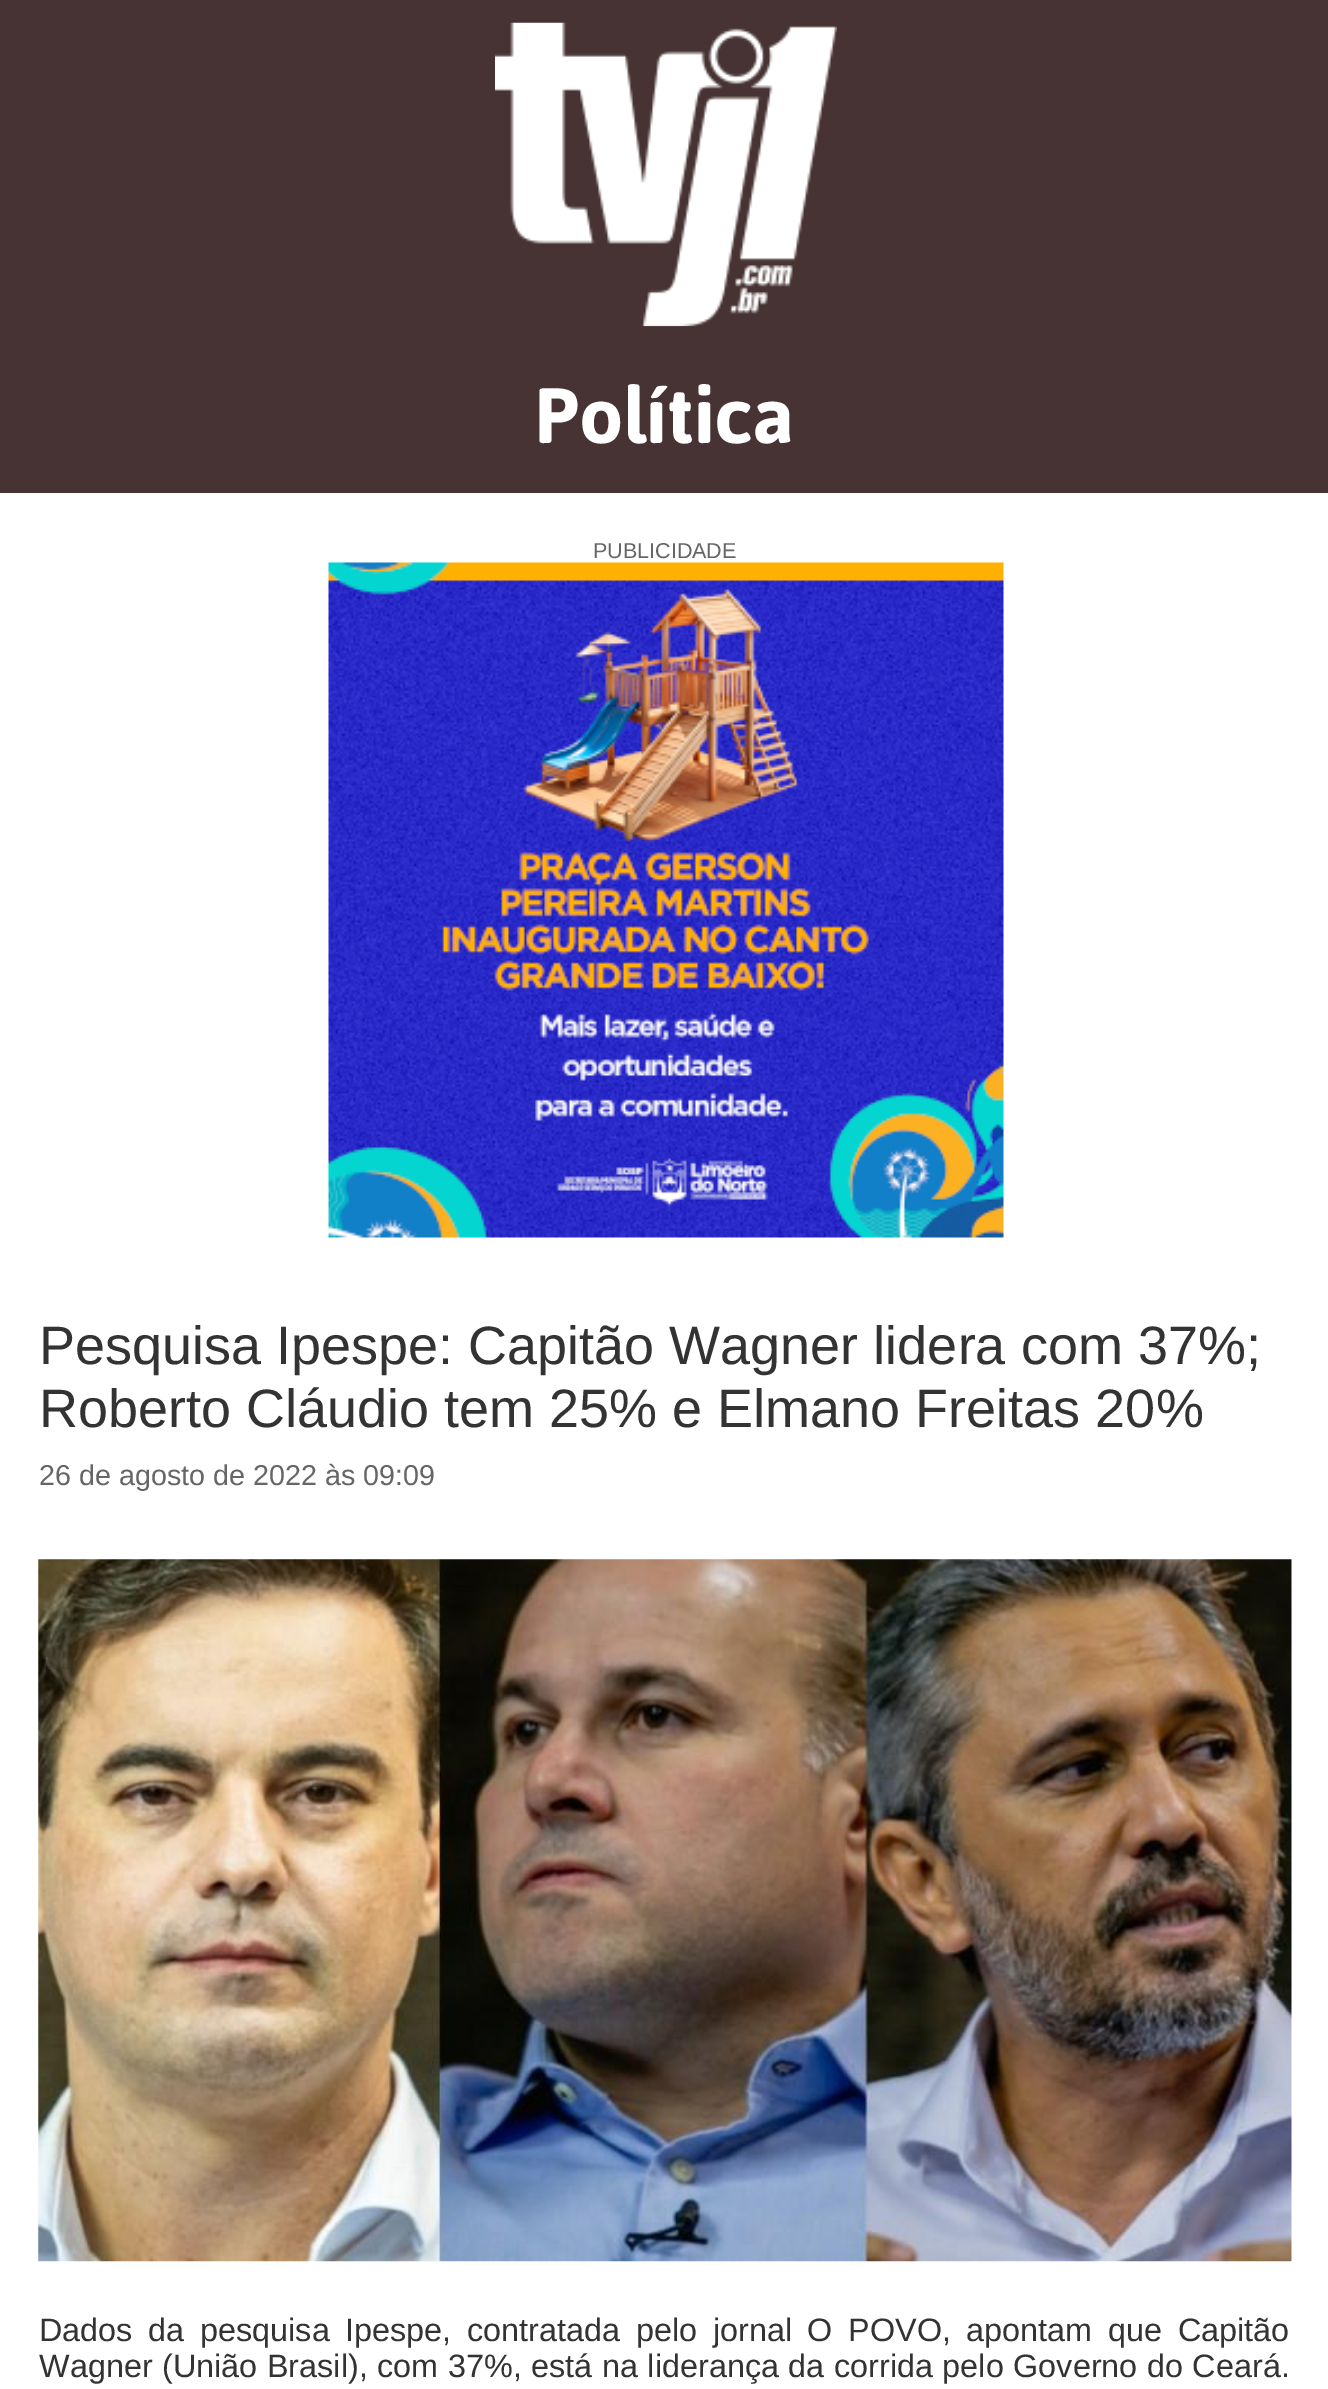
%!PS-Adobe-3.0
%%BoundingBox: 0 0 1328 2389
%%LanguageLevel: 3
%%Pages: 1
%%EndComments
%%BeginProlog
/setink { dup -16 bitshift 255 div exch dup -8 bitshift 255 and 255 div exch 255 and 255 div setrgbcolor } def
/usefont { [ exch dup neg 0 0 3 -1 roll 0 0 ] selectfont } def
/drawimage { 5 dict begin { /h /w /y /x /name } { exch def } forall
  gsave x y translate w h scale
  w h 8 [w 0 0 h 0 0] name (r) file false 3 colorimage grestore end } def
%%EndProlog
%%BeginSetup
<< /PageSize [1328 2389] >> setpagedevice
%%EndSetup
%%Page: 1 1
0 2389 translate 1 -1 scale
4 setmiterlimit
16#473333 setink
0 0 1328 2389 rectfill
(img1.raw) 495 22 342 305 drawimage
/Jaldi-Regular 90 usefont
16#FFFFFF setink
534 443 moveto (Política) show
0 493 1328 1896 rectfill
/LiberationSans-Regular 21.5 usefont
16#666666 setink
593 558 moveto (PUBLICIDADE) show
(img2.raw) 328 562 676 676 drawimage
/LiberationSans-Regular 54 usefont
16#333333 setink
39 1364 moveto (Pesquisa Ipespe: Capitão Wagner lidera com 37%;) show
39 1427 moveto (Roberto Cláudio tem 25% e Elmano Freitas 20%) show
/LiberationSans-Regular 28.75 usefont
16#666666 setink
39 1485 moveto (26 de agosto de 2022 às 09:09) show
(img3.raw) 38 1559 1254 703 drawimage
/LiberationSans-Regular 32.4 usefont
16#333333 setink
39 2341 moveto 6.6 0 32 (Dados da pesquisa Ipespe, contratada pelo jornal O POVO, apontam que Capitão) widthshow
39 2377 moveto 0.5 0 32 (Wagner \(União Brasil\), com 37%, está na liderança da corrida pelo Governo do Ceará.) widthshow
showpage
%%EOF
